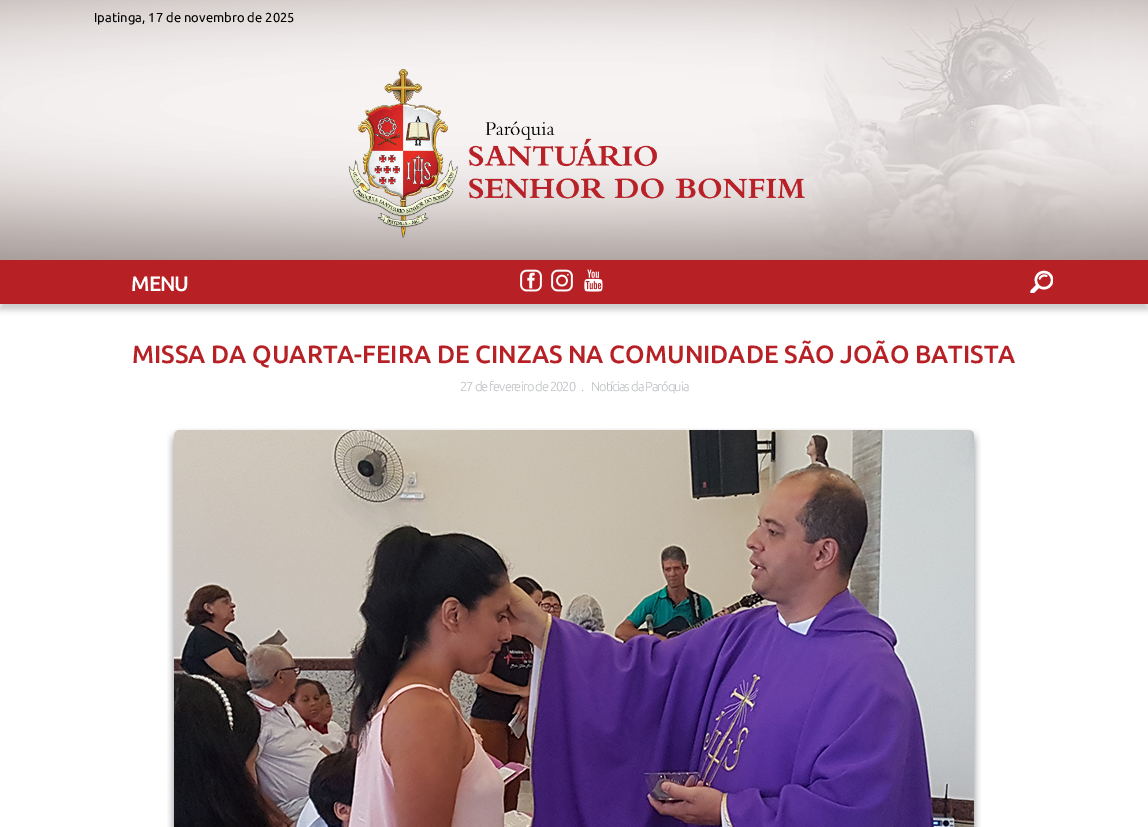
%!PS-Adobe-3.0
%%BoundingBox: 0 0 1148 827
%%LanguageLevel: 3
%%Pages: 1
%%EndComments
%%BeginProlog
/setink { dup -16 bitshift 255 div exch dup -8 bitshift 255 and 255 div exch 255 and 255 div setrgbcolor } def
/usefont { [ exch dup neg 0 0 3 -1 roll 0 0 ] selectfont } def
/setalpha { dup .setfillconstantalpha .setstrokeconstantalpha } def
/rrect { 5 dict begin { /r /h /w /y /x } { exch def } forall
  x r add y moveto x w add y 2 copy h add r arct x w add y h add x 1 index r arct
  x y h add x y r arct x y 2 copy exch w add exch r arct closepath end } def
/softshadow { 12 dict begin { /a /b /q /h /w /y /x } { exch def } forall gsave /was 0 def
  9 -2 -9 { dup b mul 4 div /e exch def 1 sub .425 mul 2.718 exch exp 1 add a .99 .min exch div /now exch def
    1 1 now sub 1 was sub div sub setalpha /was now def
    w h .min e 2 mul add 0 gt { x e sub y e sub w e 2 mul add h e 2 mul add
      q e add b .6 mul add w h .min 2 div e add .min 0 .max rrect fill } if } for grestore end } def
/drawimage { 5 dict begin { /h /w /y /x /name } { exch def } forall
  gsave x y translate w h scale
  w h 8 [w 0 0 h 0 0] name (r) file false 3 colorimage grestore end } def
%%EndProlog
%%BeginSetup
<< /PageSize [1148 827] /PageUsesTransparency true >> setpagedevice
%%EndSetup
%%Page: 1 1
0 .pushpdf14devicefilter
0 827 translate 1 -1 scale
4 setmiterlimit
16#FFFFFF setink
0 0 1148 827 rectfill
16#000000 setink
0 6 1148 304 0 3 0.2 softshadow
(img1.raw) 0 0 1148 260 drawimage
/Ubuntu-Regular 13 usefont
94 22 moveto (Ipatinga, 17 de novembro de 2025) show
(img2.raw) 348 68 457 170 drawimage
16#B72126 setink
0 260 1148 44 rectfill
/Ubuntu-Medium 21 usefont
16#FFFFFF setink
131 291 moveto -1 0 (MENU) ashow
(img3.raw) 520 269 22 23 drawimage
(img4.raw) 551 269 22 23 drawimage
(img5.raw) 584 269 19 23 drawimage
(img6.raw) 1030 270 23 23 drawimage
/Ubuntu-Medium 25 usefont
16#B72126 setink
132 363 moveto (MISSA DA QUARTA-FEIRA DE CINZAS NA COMUNIDADE SÃO JOÃO BATISTA) show
/Ubuntu-Light 13 usefont
16#BBBDC0 setink
460 391 moveto -1 0 (27 de fevereiro de 2020   .    Notícias da Paróquia) ashow
(img7.raw) 167 428 814 399 drawimage
.poppdf14devicefilter showpage
%%EOF
